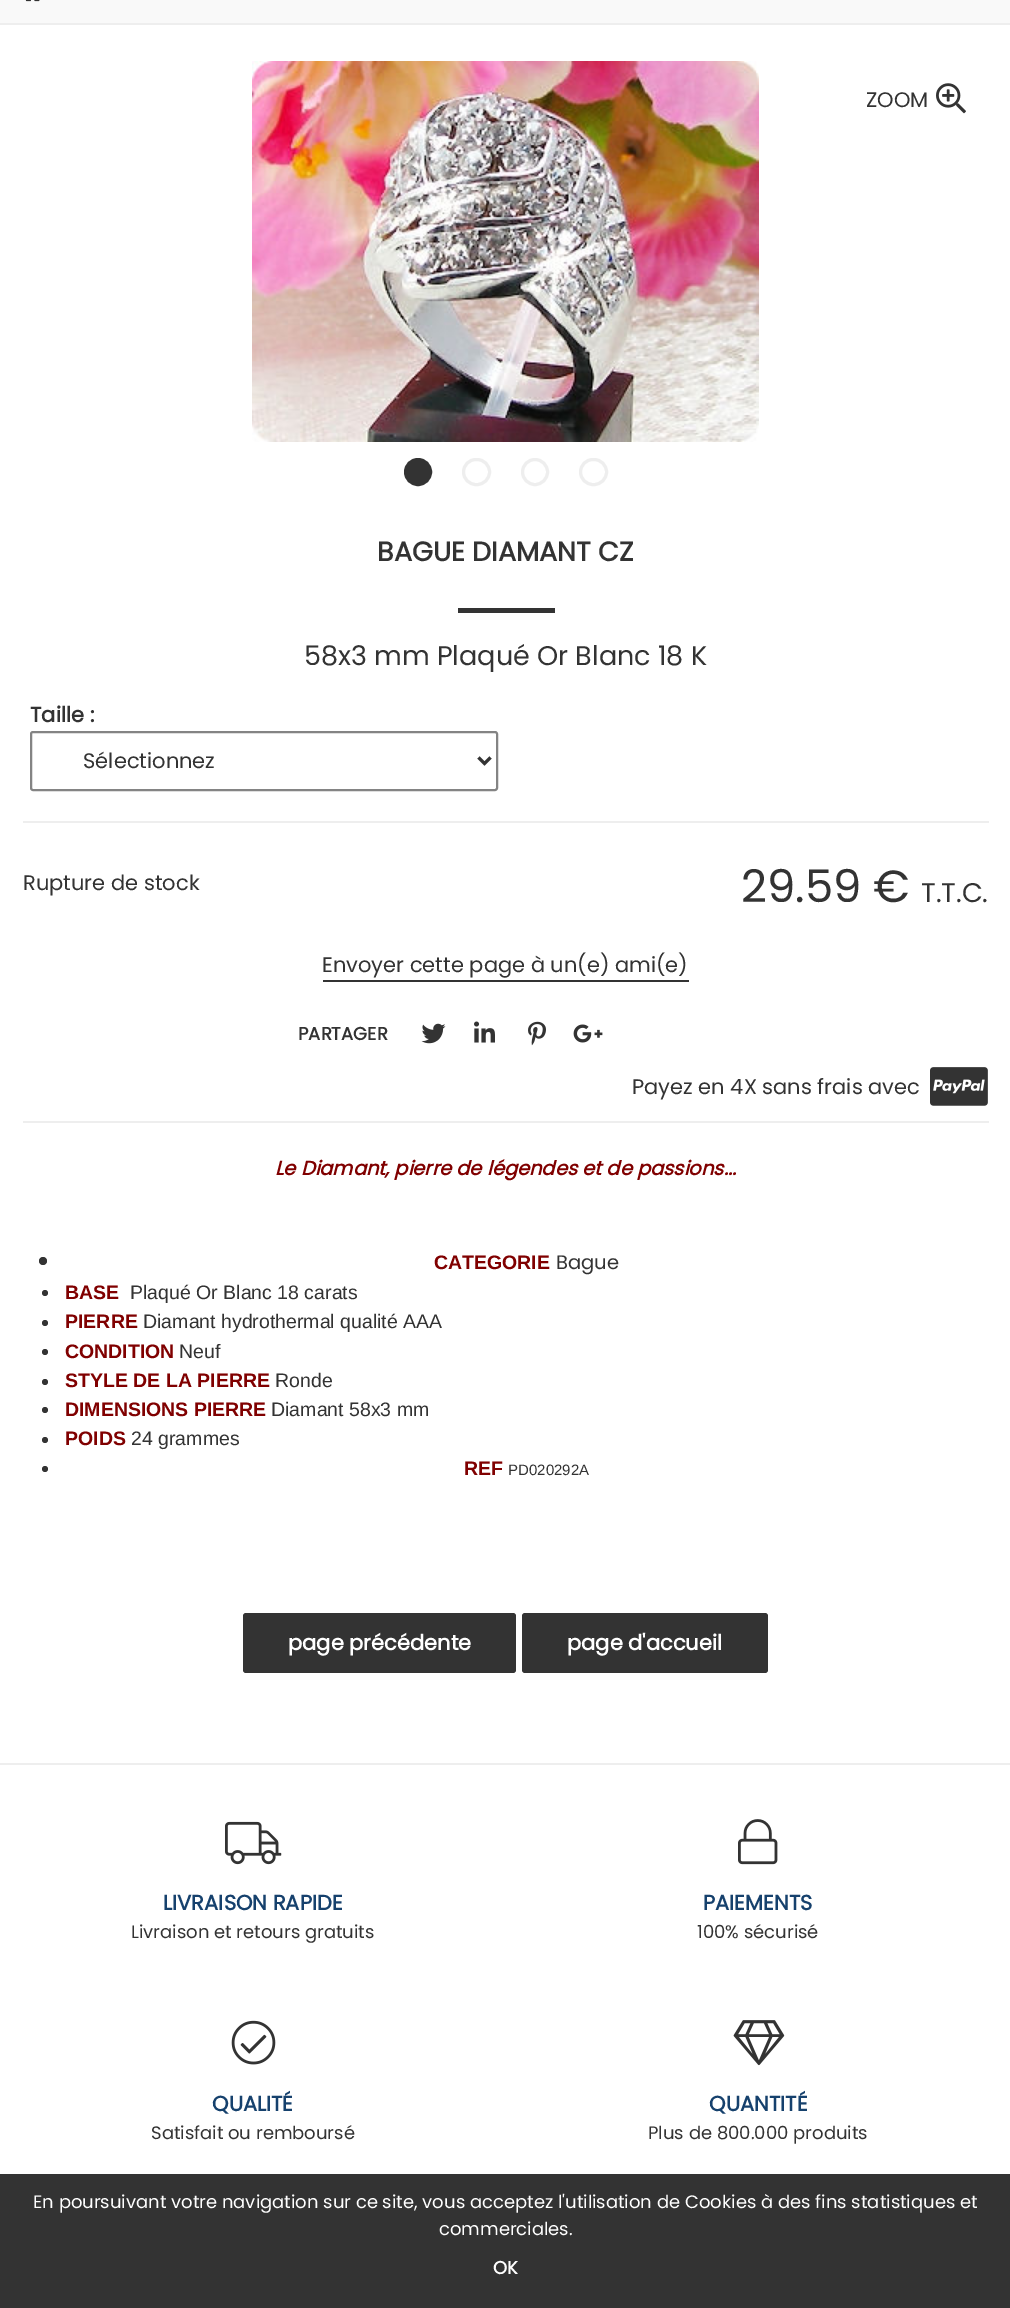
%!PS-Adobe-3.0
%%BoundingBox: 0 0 1010 2308
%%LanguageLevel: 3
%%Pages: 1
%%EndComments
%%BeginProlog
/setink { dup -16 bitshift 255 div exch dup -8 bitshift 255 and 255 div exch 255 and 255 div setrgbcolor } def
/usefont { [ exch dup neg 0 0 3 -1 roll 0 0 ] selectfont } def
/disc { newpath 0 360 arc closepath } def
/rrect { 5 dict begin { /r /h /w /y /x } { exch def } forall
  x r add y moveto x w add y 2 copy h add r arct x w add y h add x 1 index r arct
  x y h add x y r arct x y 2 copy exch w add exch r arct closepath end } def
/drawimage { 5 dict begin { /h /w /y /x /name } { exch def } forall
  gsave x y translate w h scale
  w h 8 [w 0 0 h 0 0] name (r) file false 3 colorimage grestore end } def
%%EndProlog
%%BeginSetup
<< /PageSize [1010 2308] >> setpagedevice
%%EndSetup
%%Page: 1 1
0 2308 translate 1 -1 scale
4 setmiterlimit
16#FFFFFF setink
0 0 1010 2308 rectfill
16#F9F9F9 setink
0 0 1010 23 rectfill
16#EEEEEE setink
0 23 1010 2 rectfill
(img1.raw) 25 0 15 2 drawimage
(img2.raw) 252 61 507 381 drawimage
/Poppins-Regular 21 usefont
16#333333 setink
866 107 moveto (ZOOM) show
(img3.raw) 936 83 30 31 drawimage
418 472 12.5 disc gsave fill grestore
3 setlinewidth
stroke
16#EEEEEE setink
463.5 459.5 26 25 12.5 rrect stroke
535 472 12.5 disc stroke
580.5 459.5 26 25 12.5 rrect stroke
/Poppins-Bold 27 usefont
16#333333 setink
377 561 moveto (BAGUE DIAMANT CZ) show
458 608 97 5 rectfill
/Poppins-Regular 27 usefont
304 665 moveto (58x3 mm Plaqué Or Blanc 18 K) show
/Poppins-Bold 21 usefont
30 722 moveto (Taille :) show
16#848484 setink
2 setlinewidth
31 732 466 58 2 rrect stroke
16#333333 setink
3 setlinewidth
478.5 757.5 moveto 484.5 763.5 lineto 490.5 757.5 lineto stroke
/Poppins-Regular 21 usefont
83 768 moveto (Sélectionnez) show
16#EEEEEE setink
23 821 966 2 rectfill
23 1121 966 2 rectfill
16#333333 setink
23 890 moveto (Rupture de stock) show
/Poppins-Regular 45 usefont
741 902 moveto (29.59 €) show
/Poppins-Regular 27 usefont
921 902 moveto (T.T.C.) show
/Poppins-Regular 21 usefont
322 972 moveto (Envoyer cette page à un\(e\) ami\(e\)) show
323 980 366 2 rectfill
/Poppins-Bold 18 usefont
298 1040 moveto (PARTAGER) show
(img4.raw) 421 1023 25 21 drawimage
(img5.raw) 474 1021 21 22 drawimage
(img6.raw) 528 1021 18 25 drawimage
(img7.raw) 573 1024 30 19 drawimage
/Poppins-Regular 21 usefont
632 1094 moveto (Payez en 4X sans frais avec) show
(img8.raw) 930 1067 58 39 drawimage
/Poppins-BoldItalic 19.5 usefont
16#800000 setink
275 1175 moveto (Le Diamant, pierre de légendes et de passions...) show
16#333333 setink
43 1261 4 disc fill
/LiberationSans-Bold 19.5 usefont
16#800000 setink
434 1269 moveto (CATEGORIE) show
/Poppins-Regular 19.5 usefont
16#333333 setink
556 1269 moveto (Bague) show
45 1293 3 disc fill
/LiberationSans-Bold 19.5 usefont
16#800000 setink
65 1299 moveto (BASE) show
/LiberationSans-Regular 19.5 usefont
16#333333 setink
130 1299 moveto (Plaqué Or Blanc 18 carats) show
45 1323 3 disc fill
/LiberationSans-Bold 19.5 usefont
16#800000 setink
65 1328 moveto (PIERRE) show
/LiberationSans-Regular 19.5 usefont
16#333333 setink
143 1328 moveto (Diamant hydrothermal qualité AAA) show
45 1352 3 disc fill
/LiberationSans-Bold 19.5 usefont
16#800000 setink
65 1358 moveto (CONDITION) show
/LiberationSans-Regular 19.5 usefont
16#333333 setink
179 1358 moveto (Neuf) show
45 1382 3 disc fill
/LiberationSans-Bold 19.5 usefont
16#800000 setink
65 1387 moveto (STYLE DE LA PIERRE) show
/LiberationSans-Regular 19.5 usefont
16#333333 setink
275 1387 moveto (Ronde) show
45 1410 3 disc fill
/LiberationSans-Bold 19.5 usefont
16#800000 setink
65 1416 moveto (DIMENSIONS PIERRE) show
/LiberationSans-Regular 19.5 usefont
16#333333 setink
271 1416 moveto (Diamant 58x3 mm) show
45 1440 3 disc fill
/LiberationSans-Bold 19.5 usefont
16#800000 setink
65 1445 moveto (POIDS) show
/LiberationSans-Regular 19.5 usefont
16#333333 setink
131 1445 moveto (24 grammes) show
45 1469 3 disc fill
/LiberationSans-Bold 19.5 usefont
16#800000 setink
464 1475 moveto (REF) show
/LiberationSans-Regular 15 usefont
16#333333 setink
508 1475 moveto (PD020292A) show
243 1613 273 60 3 rrect fill
/Poppins-Bold 21 usefont
16#FFFFFF setink
288 1650 moveto (page précédente) show
16#333333 setink
522 1613 246 60 3 rrect fill
16#FFFFFF setink
567 1650 moveto (page d'accueil) show
16#EEEEEE setink
0 1763 1010 2 rectfill
(img9.raw) 225 1821 57 44 drawimage
16#16416D setink
163 1910 moveto (LIVRAISON RAPIDE) show
/Poppins-Regular 18 usefont
16#333333 setink
131 1938 moveto (Livraison et retours gratuits) show
(img10.raw) 738 1819 40 46 drawimage
/Poppins-Bold 21 usefont
16#16416D setink
703 1910 moveto (PAIEMENTS) show
/Poppins-Regular 18 usefont
16#333333 setink
697 1938 moveto (100% sécurisé) show
(img11.raw) 231 2020 45 45 drawimage
/Poppins-Bold 21 usefont
16#16416D setink
212 2111 moveto (QUALITÉ) show
/Poppins-Regular 18 usefont
16#333333 setink
151 2139 moveto (Satisfait ou remboursé) show
(img12.raw) 733 2020 52 46 drawimage
/Poppins-Bold 21 usefont
16#16416D setink
709 2111 moveto (QUANTITÉ) show
/Poppins-Regular 18 usefont
16#333333 setink
648 2139 moveto (Plus de 800.000 produits) show
0 2174 1010 134 rectfill
16#FFFFFF setink
33 2208 moveto (En poursuivant votre navigation sur ce site, vous acceptez l'utilisation de Cookies à des fins statistiques et) show
439 2235 moveto (commerciales.) show
/Poppins-Bold 18 usefont
493 2274 moveto (OK) show
showpage
%%EOF
